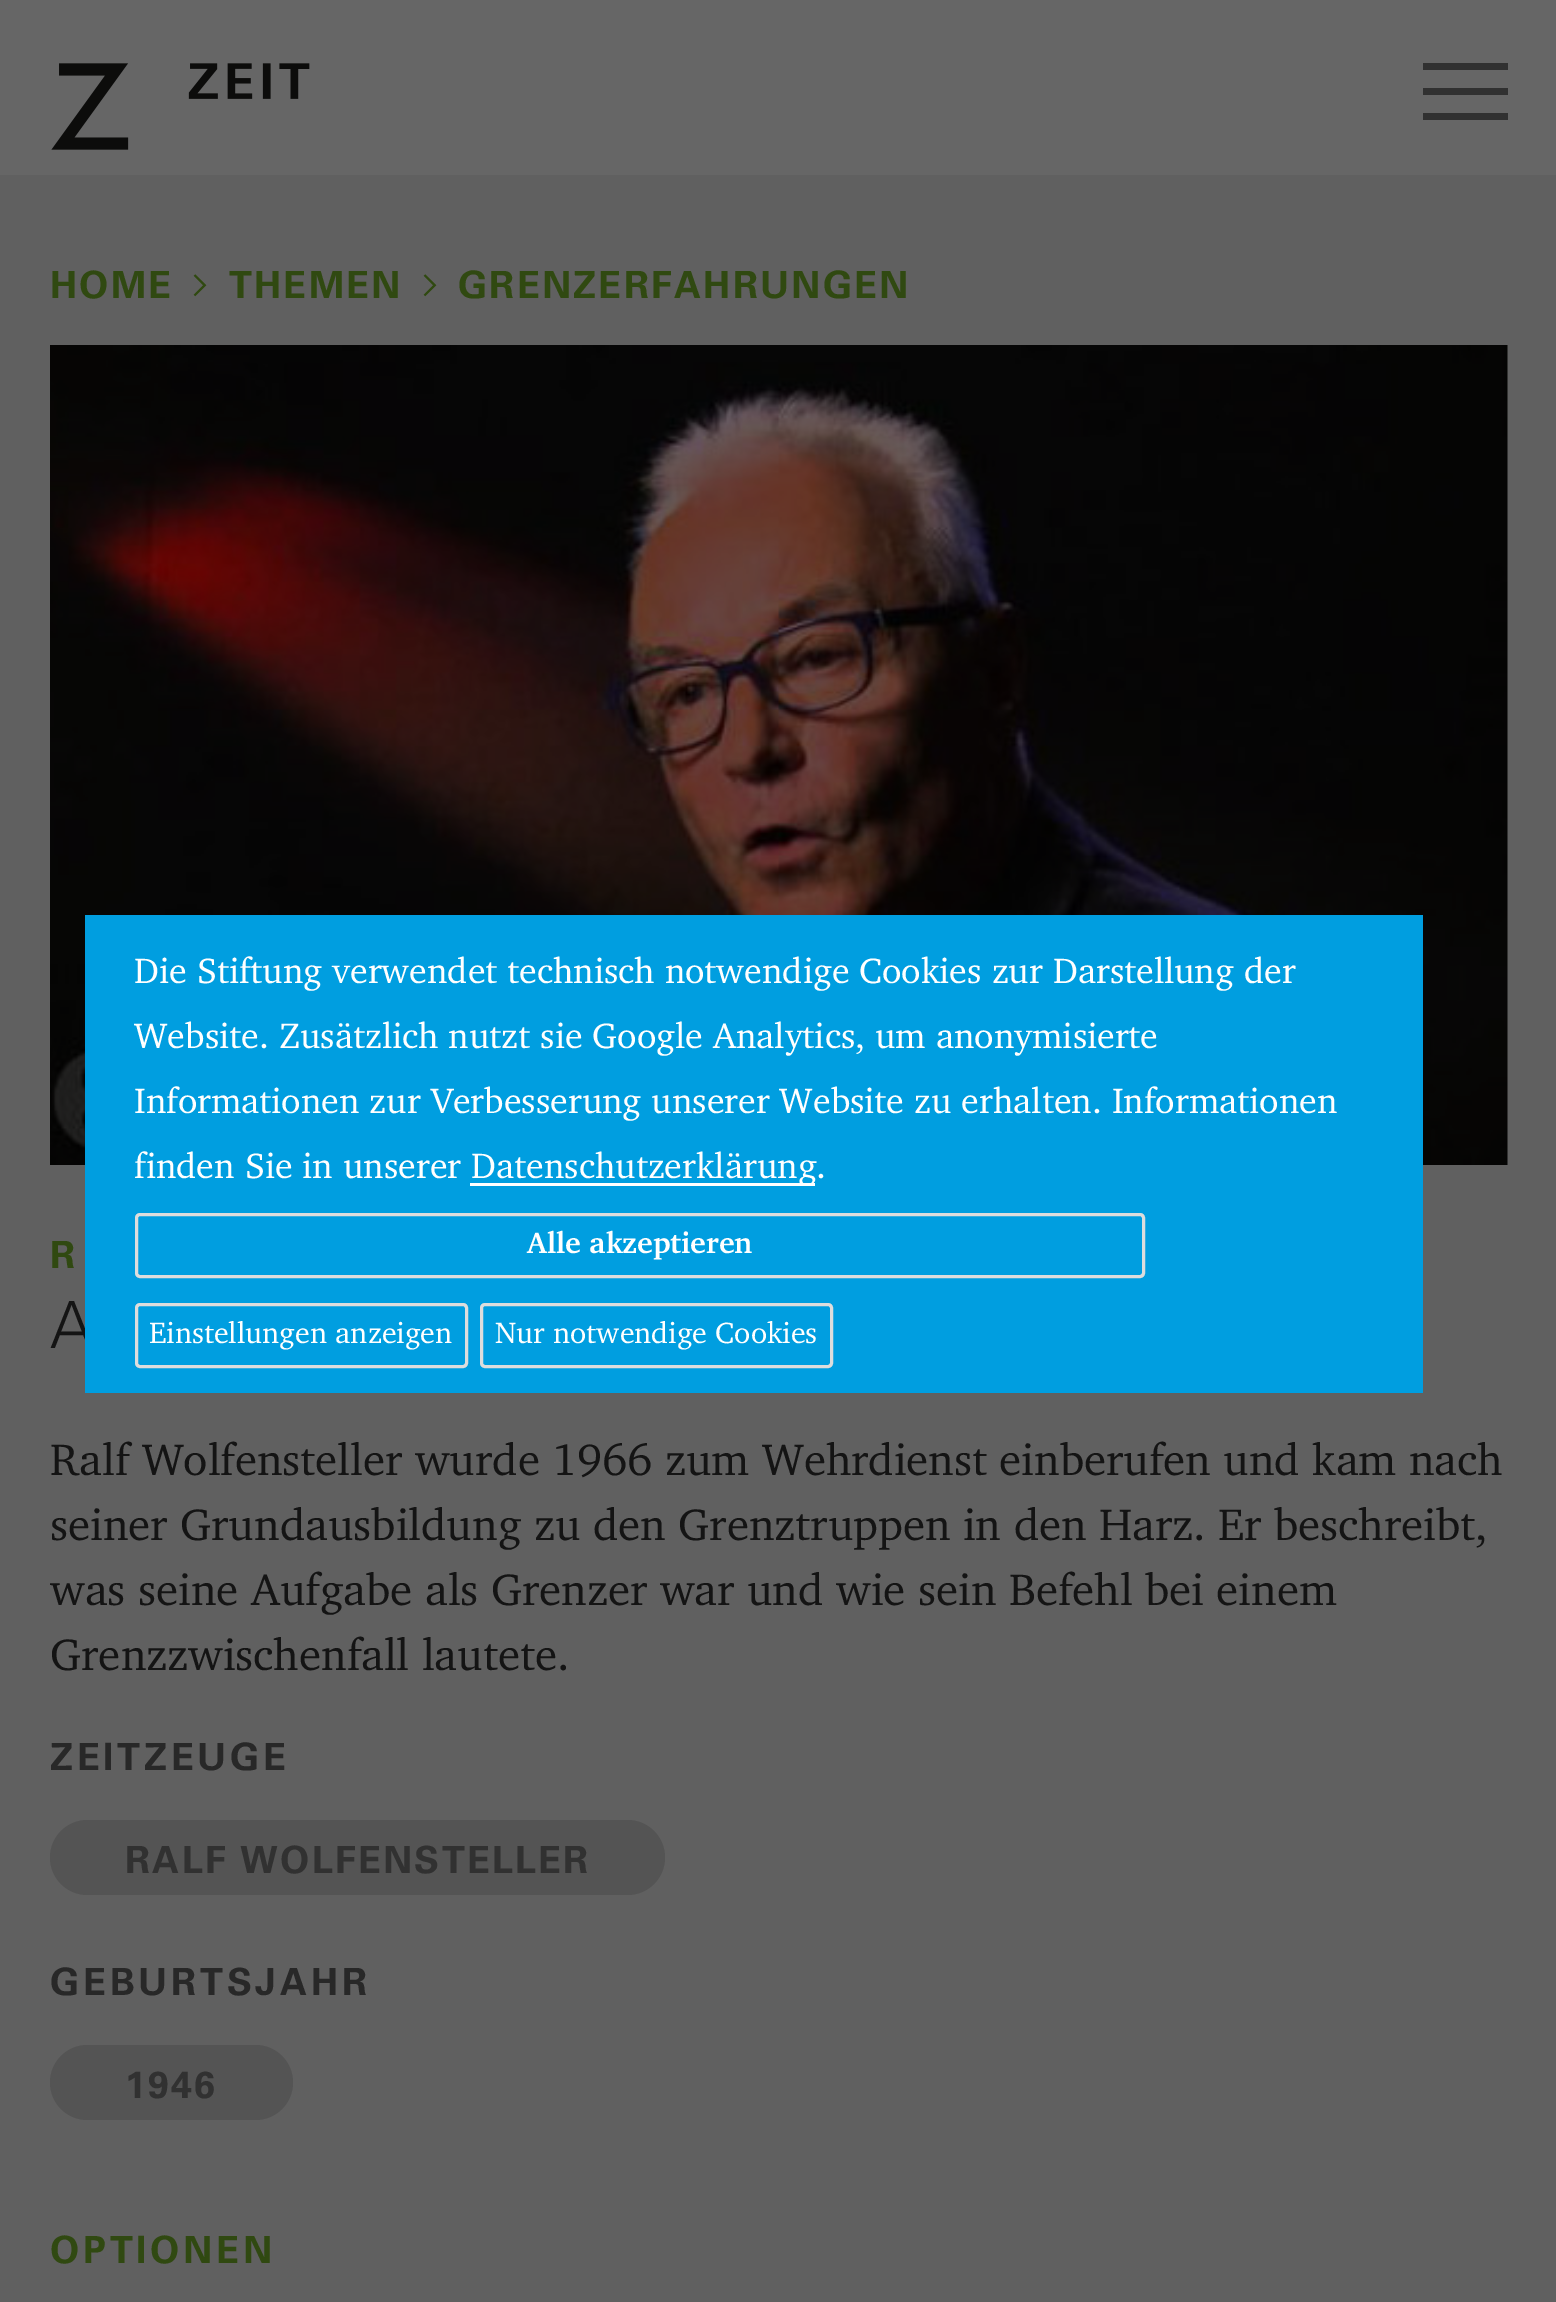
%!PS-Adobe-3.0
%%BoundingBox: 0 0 1556 2302
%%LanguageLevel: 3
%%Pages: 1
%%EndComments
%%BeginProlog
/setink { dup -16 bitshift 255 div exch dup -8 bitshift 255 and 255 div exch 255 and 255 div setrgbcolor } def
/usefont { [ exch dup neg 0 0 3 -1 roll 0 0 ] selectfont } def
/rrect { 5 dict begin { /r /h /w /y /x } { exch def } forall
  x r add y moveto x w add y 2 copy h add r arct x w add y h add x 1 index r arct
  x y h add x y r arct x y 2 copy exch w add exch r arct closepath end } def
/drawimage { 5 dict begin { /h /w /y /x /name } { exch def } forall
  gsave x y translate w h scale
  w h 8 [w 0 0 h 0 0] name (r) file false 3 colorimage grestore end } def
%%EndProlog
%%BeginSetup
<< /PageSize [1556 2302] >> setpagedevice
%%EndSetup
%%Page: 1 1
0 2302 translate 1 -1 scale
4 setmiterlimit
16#666666 setink
0 0 1556 2302 rectfill
(img1.raw) 51 63 259 87 drawimage
[
    [1423 63 85 7 16#313131]
    [1423 88 85 7 16#313131]
    [1423 113 85 7 16#313131]
    [0 175 1556 2127 16#606060]
] { aload pop setink rectfill } forall
/Univers-Bold 37.5 usefont
16#304911 setink
50 298 moveto 2.25 0 (HOME) ashow
(img2.raw) 193 274 14 23 drawimage
229 298 moveto 2.25 0 (THEMEN) ashow
(img2.raw) 423 274 14 23 drawimage
458 298 moveto 2.25 0 (GRENZERFAHRUNGEN) ashow
(img3.raw) 50 345 1458 820 drawimage
50 1268 moveto 3.75 0 (R) ashow
/Univers-Light 65 usefont
16#141414 setink
50 1348 moveto 2 0 (A) ashow
/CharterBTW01-Regular 45 usefont
[
    [(Ralf Wolfensteller wurde 1966 zum Wehrdienst einberufen und kam nach) 50 1475]
    [(seiner Grundausbildung zu den Grenztruppen in den Harz. Er beschreibt,) 50 1540]
    [(was seine Aufgabe als Grenzer war und wie sein Befehl bei einem) 50 1605]
    [(Grenzzwischenfall lautete.) 50 1670]
] { aload pop moveto show } forall
/Univers-Bold 37.5 usefont
16#282828 setink
50 1770 moveto 3.75 0 (ZEITZEUGE) ashow
16#545454 setink
50 1820 615 75 37.5 rrect fill
16#313131 setink
125 1873 moveto 2.25 0 (RALF WOLFENSTELLER) ashow
16#282828 setink
50 1995 moveto 3.75 0 (GEBURTSJAHR) ashow
16#545454 setink
50 2045 243 75 37.5 rrect fill
16#313131 setink
125 2098 moveto 2.25 0 (1946) ashow
16#304911 setink
50 2263 moveto 3.75 0 (OPTIONEN) ashow
16#009EE0 setink
85 915 1338 478 rectfill
/CharterBTW01-Regular 36 usefont
16#FFFFFF setink
[
    [(Die Stiftung verwendet technisch notwendige Cookies zur Darstellung der) 134 983]
    [(Website. Zusätzlich nutzt sie Google Analytics, um anonymisierte) 134 1048]
    [(Informationen zur Verbesserung unserer Website zu erhalten. Informationen) 134 1113]
    [(finden Sie in unserer) 134 1178]
] { aload pop moveto show } forall
470 1183 345 3 rectfill
471 1178 moveto (Datenschutzerklärung.) show
16#DDDDDD setink
3 setlinewidth
136.5 1214.5 1007 62 3.5 rrect stroke
/CharterBTW01-Bold 30 usefont
16#FFFFFF setink
527 1253 moveto (Alle akzeptieren) show
16#DDDDDD setink
136.5 1304.5 330 62 3.5 rrect stroke
/CharterBTW01-Regular 30 usefont
16#FFFFFF setink
149 1343 moveto (Einstellungen anzeigen) show
16#DDDDDD setink
481.5 1304.5 350 62 3.5 rrect stroke
16#FFFFFF setink
495 1343 moveto (Nur notwendige Cookies) show
showpage
%%EOF
